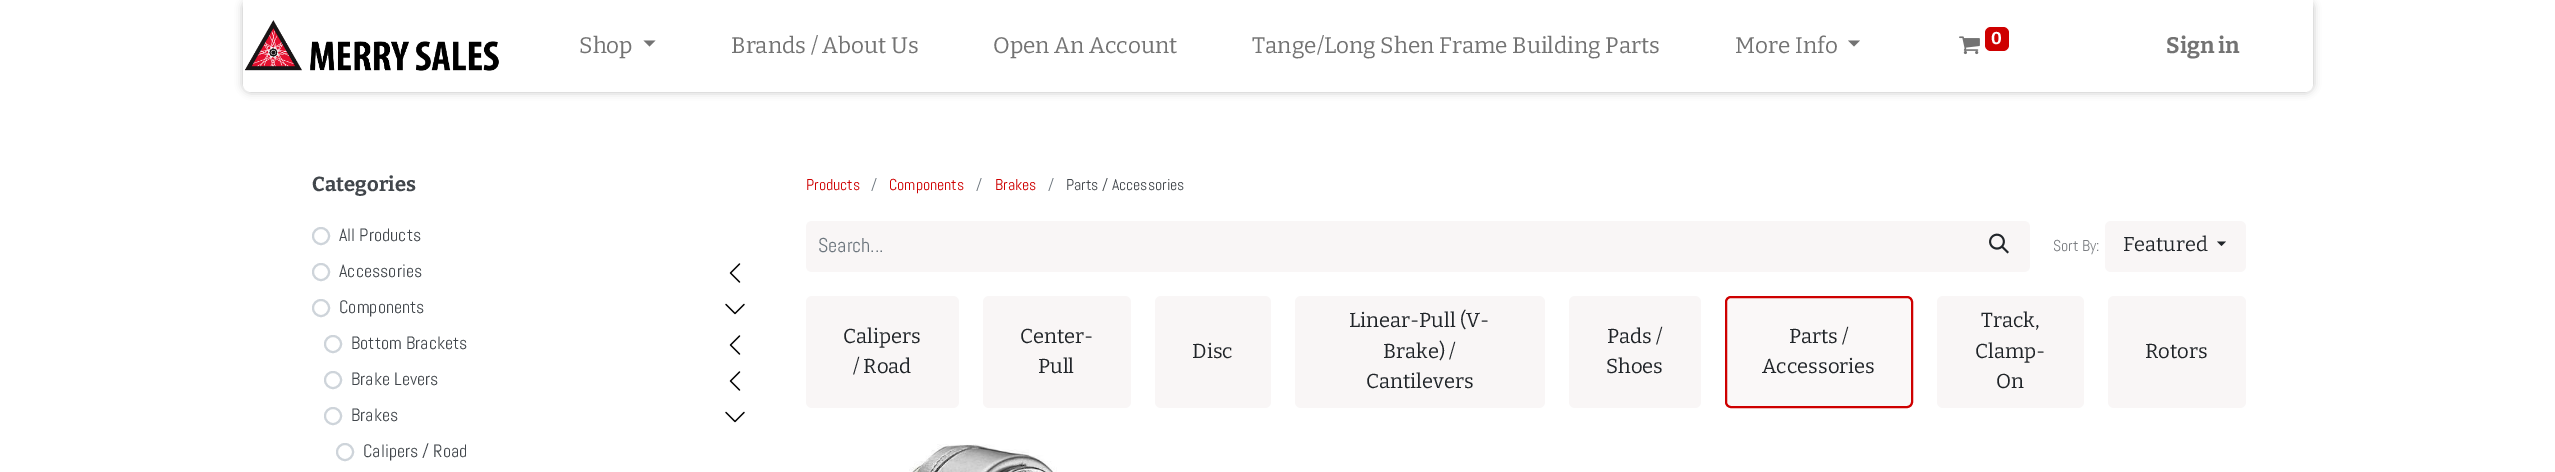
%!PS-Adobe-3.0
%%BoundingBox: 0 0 2555 472
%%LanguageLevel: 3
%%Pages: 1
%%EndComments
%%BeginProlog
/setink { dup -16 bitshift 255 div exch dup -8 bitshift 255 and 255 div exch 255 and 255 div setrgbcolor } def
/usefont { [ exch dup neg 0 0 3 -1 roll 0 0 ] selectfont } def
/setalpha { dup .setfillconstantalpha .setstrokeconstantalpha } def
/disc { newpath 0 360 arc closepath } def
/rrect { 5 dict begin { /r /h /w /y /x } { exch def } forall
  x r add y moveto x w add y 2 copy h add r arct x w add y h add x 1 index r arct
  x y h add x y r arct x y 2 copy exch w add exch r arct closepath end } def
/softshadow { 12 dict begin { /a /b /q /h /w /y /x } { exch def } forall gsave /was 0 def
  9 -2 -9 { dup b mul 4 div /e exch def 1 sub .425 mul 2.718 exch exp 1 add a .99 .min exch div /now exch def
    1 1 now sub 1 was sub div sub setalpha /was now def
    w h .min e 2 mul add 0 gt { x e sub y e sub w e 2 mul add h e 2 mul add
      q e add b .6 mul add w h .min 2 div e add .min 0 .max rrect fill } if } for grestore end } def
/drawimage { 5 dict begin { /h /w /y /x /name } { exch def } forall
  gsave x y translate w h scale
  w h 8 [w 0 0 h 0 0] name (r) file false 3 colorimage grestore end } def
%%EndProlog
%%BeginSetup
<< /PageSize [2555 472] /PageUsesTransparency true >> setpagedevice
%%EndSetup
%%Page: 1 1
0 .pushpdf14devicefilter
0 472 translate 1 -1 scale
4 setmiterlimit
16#FFFFFF setink
0 0 2555 472 rectfill
16#000000 setink
243 0 2070 92 8 4 0.25 softshadow
16#FFFFFF setink
243 0 moveto 2313 0 lineto 2313 84 lineto 2313 88.5 2309.5 92 2305 92 curveto 251 92 lineto 246.5 92 243 88.5 243 84 curveto closepath fill
(img1.raw) 245 20 254 51 drawimage
/Bitter-Regular 22.5 usefont
16#737373 setink
579 53 moveto (Shop) show
643.5 40.5 moveto 655.5 40.5 lineto 649.5 46.5 lineto closepath fill
[
    [(Brands / About Us) 731 53]
    [(Open An Account) 993 53]
    [(Tange/Long Shen Frame Building Parts) 1252 53]
    [(More Info) 1735 53]
] { aload pop moveto show } forall
1848 40.5 moveto 1860 40.5 lineto 1854 46.5 lineto closepath fill
(img2.raw) 1959 36 21 19 drawimage
16#CE0000 setink
1985 27 24 24 6 rrect fill
/Bitter-Bold 17 usefont
16#FFFFFF setink
1991 44 moveto (0) show
/Bitter-Bold 22.5 usefont
16#737373 setink
2166 53 moveto (Sign in) show
/Bitter-Bold 20.25 usefont
16#42474C setink
312 191 moveto (Categories) show
16#CED4DA setink
2 setlinewidth
321 236 8 disc stroke
/Abel-Regular 18 usefont
16#42474C setink
339 241 moveto (All Products) show
16#CED4DA setink
321 272 8 disc stroke
16#42474C setink
339 277 moveto (Accessories) show
(img3.raw) 729 263 12 20 drawimage
16#CED4DA setink
321 308 8 disc stroke
16#42474C setink
339 313 moveto (Components) show
(img4.raw) 725 303 20 12 drawimage
16#CED4DA setink
333 344 8 disc stroke
16#42474C setink
351 349 moveto (Bottom Brackets) show
(img3.raw) 729 335 12 20 drawimage
16#CED4DA setink
333 380 8 disc stroke
16#42474C setink
351 385 moveto (Brake Levers) show
(img3.raw) 729 371 12 20 drawimage
16#CED4DA setink
333 416 8 disc stroke
16#42474C setink
351 421 moveto (Brakes) show
(img4.raw) 725 411 20 12 drawimage
16#CED4DA setink
345 452 8 disc stroke
16#42474C setink
363 457 moveto (Calipers / Road) show
/Abel-Regular 15.75 usefont
16#CE0000 setink
806 190 moveto (Products) show
16#6C757D setink
871 190 moveto (/) show
16#CE0000 setink
889 190 moveto (Components) show
16#6C757D setink
976 190 moveto (/) show
16#CE0000 setink
995 190 moveto (Brakes) show
16#6C757D setink
1048 190 moveto (/) show
16#42474C setink
1066 190 moveto (Parts / Accessories) show
16#F9F6F6 setink
812 221 moveto 1971 221 lineto 1971 272 lineto 812 272 lineto 808.5 272 806 269.5 806 266 curveto 806 227 lineto 806 223.5 808.5 221 812 221 curveto closepath fill
/Abel-Regular 20 usefont
16#6C757D setink
818 252 moveto (Search...) show
16#F9F6F6 setink
1970 221 moveto 2024 221 lineto 2027.5 221 2030 223.5 2030 227 curveto 2030 266 lineto 2030 269.5 2027.5 272 2024 272 curveto 1970 272 lineto closepath fill
(img5.raw) 1989 233 20 21 drawimage
/Abel-Regular 15.75 usefont
16#7B7E82 setink
2053 251 moveto (Sort By:) show
16#F9F6F6 setink
2105 221 141 51 6 rrect fill
/Bitter-Regular 20 usefont
16#212529 setink
2123 251 moveto (Featured) show
2217 241.5 moveto 2226 241.5 lineto 2221.5 246 lineto closepath fill
16#F9F6F6 setink
806 296 153 112 6 rrect fill
/Bitter-Regular 20.25 usefont
16#212529 setink
843 343 moveto (Calipers) show
853 373 moveto (/ Road) show
16#F9F6F6 setink
983 296 148 112 6 rrect fill
16#212529 setink
1020 343 moveto (Center-) show
1038 373 moveto (Pull) show
16#F9F6F6 setink
1155 296 116 112 6 rrect fill
16#212529 setink
1192 358 moveto (Disc) show
16#F9F6F6 setink
1295 296 250 112 6 rrect fill
16#212529 setink
[
    [(Linear-Pull \(V-) 1349 327]
    [(Brake\) /) 1383 358]
    [(Cantilevers) 1366 388]
] { aload pop moveto show } forall
16#F9F6F6 setink
1569 296 132 112 6 rrect fill
16#212529 setink
1607 343 moveto (Pads /) show
1606 373 moveto (Shoes) show
16#FAF8F8 setink
1726 297 186 110 5 rrect gsave fill grestore
16#CE0000 setink
stroke
16#212529 setink
1789 343 moveto (Parts /) show
1762 373 moveto (Accessories) show
16#F9F6F6 setink
1937 296 147 112 6 rrect fill
16#212529 setink
[
    [(Track,) 1981 327]
    [(Clamp-) 1975 358]
    [(On) 1996 388]
] { aload pop moveto show } forall
16#F9F6F6 setink
2108 296 138 112 6 rrect fill
16#212529 setink
2145 358 moveto (Rotors) show
(img6.raw) 909 444 148 28 drawimage
.poppdf14devicefilter showpage
%%EOF
